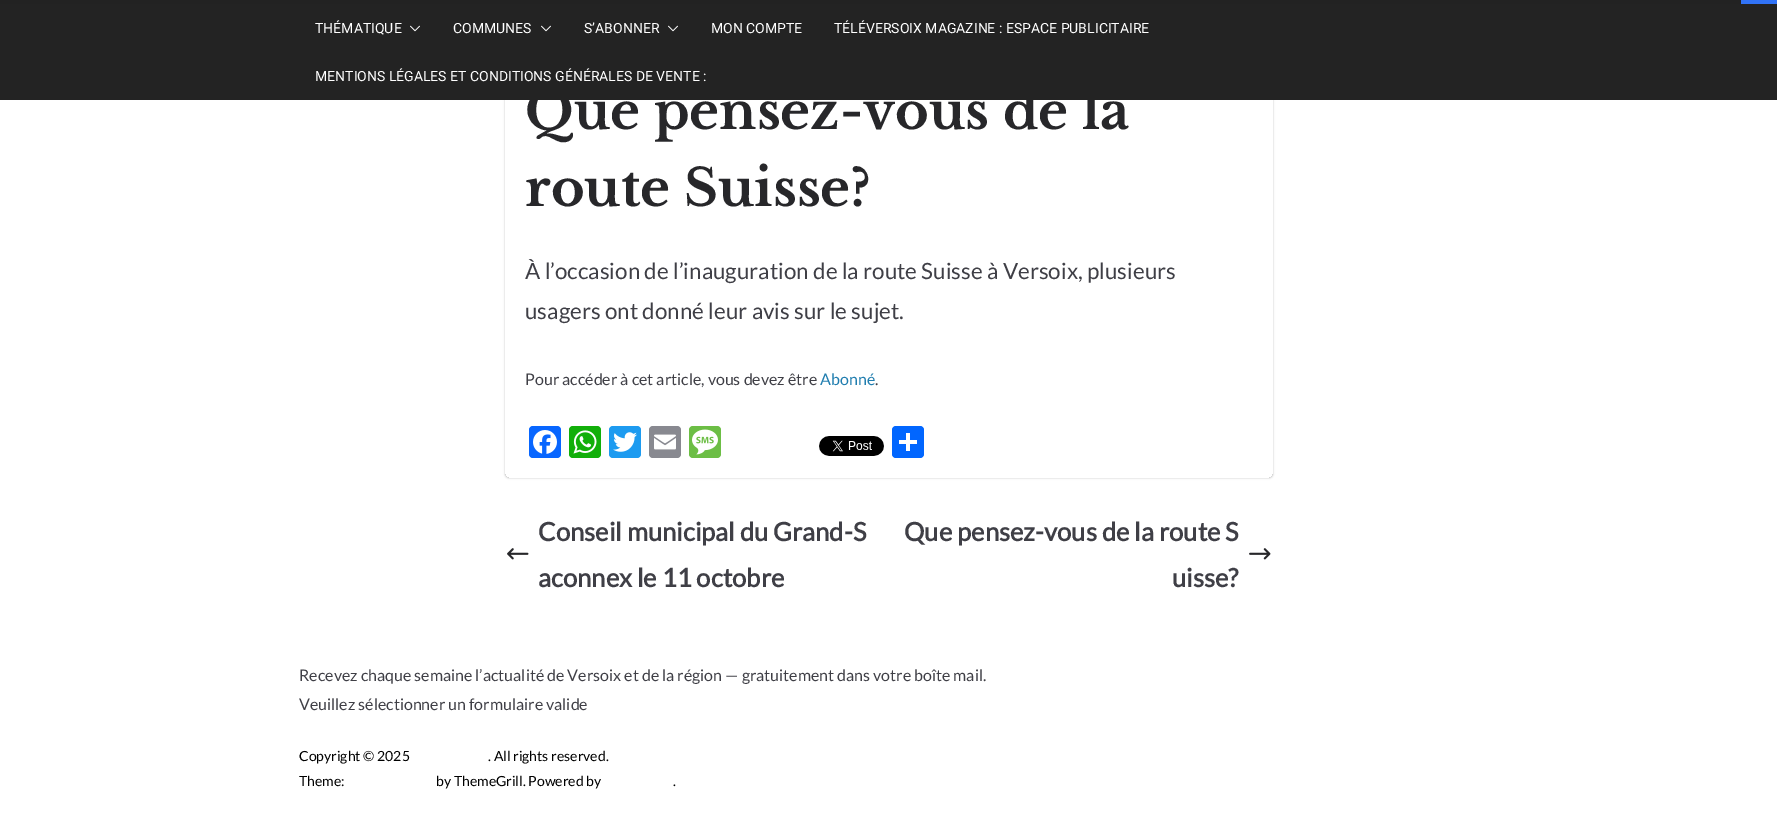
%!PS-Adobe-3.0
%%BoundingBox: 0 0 1777 824
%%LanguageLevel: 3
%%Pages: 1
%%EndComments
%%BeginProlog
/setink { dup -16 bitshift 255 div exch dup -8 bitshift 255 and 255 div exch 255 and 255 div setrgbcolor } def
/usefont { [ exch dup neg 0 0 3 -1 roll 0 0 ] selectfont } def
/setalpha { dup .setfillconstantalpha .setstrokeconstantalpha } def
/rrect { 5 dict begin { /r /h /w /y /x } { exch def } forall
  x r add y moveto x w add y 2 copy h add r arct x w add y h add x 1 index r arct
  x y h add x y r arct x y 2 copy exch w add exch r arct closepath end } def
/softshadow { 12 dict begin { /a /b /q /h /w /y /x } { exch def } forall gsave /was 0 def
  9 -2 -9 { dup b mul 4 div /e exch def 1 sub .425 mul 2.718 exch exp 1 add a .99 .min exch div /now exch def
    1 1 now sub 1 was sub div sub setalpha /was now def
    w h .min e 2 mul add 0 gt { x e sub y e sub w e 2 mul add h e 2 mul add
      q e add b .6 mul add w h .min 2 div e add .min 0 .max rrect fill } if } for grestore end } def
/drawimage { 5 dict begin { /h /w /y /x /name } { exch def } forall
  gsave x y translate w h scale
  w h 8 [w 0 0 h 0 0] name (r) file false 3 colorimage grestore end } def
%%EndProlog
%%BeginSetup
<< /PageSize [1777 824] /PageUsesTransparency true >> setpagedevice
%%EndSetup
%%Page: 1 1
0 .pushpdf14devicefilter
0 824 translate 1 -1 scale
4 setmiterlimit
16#FFFFFF setink
0 0 1777 824 rectfill
16#222222 setink
0 0 1741 4 rectfill
gsave
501 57 moveto 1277 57 lineto 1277 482 lineto 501 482 lineto closepath 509 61 moveto 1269 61 lineto 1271 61 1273 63 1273 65 curveto 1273 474 lineto 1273 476 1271 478 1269 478 curveto 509 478 lineto 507 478 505 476 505 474 curveto 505 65 lineto 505 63 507 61 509 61 curveto closepath eoclip newpath
16#000000 setink
505 61 768 417 4 1 0.24 softshadow
grestore
/LibreBaskerville-Bold 51.25 usefont
16#27272A setink
525 129 moveto (Que pensez-vous de la) show
16#232323 setink
0 4 1777 96 rectfill
16#3173F7 setink
1741 0 36 4 rectfill
/Roboto-Regular 14 usefont
16#FFFFFF setink
315 33 moveto (THÉMATIQUE) show
(img1.raw) 410 25 10 7 drawimage
453 33 moveto (COMMUNES) show
(img1.raw) 541 25 10 7 drawimage
584 33 moveto (S’ABONNER) show
(img1.raw) 668 25 10 7 drawimage
[
    [(MON COMPTE) 711 33]
    [(TÉLÉVERSOIX MAGAZINE : ESPACE PUBLICITAIRE) 834 33]
    [(MENTIONS LÉGALES ET CONDITIONS GÉNÉRALES DE VENTE :) 315 81]
] { aload pop moveto show } forall
/LibreBaskerville-Bold 51.25 usefont
16#27272A setink
525 206 moveto (route Suisse?) show
/Lato-Regular 22.4 usefont
16#3F3F46 setink
525 279 moveto (À l’occasion de l’inauguration de la route Suisse à Versoix, plusieurs) show
525 319 moveto (usagers ont donné leur avis sur le sujet.) show
/Lato-Regular 16 usefont
525 385 moveto (Pour accéder à cet article, vous devez être) show
16#207DAF setink
820 385 moveto (Abonné) show
16#3F3F46 setink
875 385 moveto (.) show
16#0866FF setink
529 426 32 32 4 rrect fill
(img2.raw) 533 430 24 24 drawimage
16#12AF0A setink
569 426 32 32 4 rrect fill
(img3.raw) 573 430 24 24 drawimage
16#1D9BF0 setink
609 426 32 32 4 rrect fill
(img4.raw) 613 432 24 20 drawimage
16#888990 setink
649 426 32 32 4 rrect fill
(img5.raw) 654 434 22 16 drawimage
16#6CBE45 setink
689 426 32 32 4 rrect fill
(img6.raw) 692 429 26 26 drawimage
(img7.raw) 819 436 65 20 drawimage
16#0166FF setink
892 426 32 32 4 rrect fill
16#FFFFFF setink
906 433 4 18 rectfill
899 440 18 4 rectfill
/Lato-Bold 25.6 usefont
16#3F3F46 setink
538 541 moveto (Conseil municipal du Grand-S) show
(img8.raw) 507 548 22 12 drawimage
538 587 moveto (aconnex le 11 octobre) show
904 541 moveto (Que pensez-vous de la route S) show
(img9.raw) 1249 548 22 12 drawimage
1172 587 moveto (uisse?) show
/Lato-Regular 16 usefont
299 681 moveto (Recevez chaque semaine l’actualité de Versoix et de la région — gratuitement dans votre boîte mail.) show
299 710 moveto (Veuillez sélectionner un formulaire valide) show
/Lato-Regular 14 usefont
16#000000 setink
[
    [(Copyright © 2025) 299 761]
    [(. All rights reserved.) 488 761]
    [(Theme:) 299 786]
    [(by ThemeGrill. Powered by) 436 786]
    [(.) 673 786]
] { aload pop moveto show } forall
.poppdf14devicefilter showpage
%%EOF
